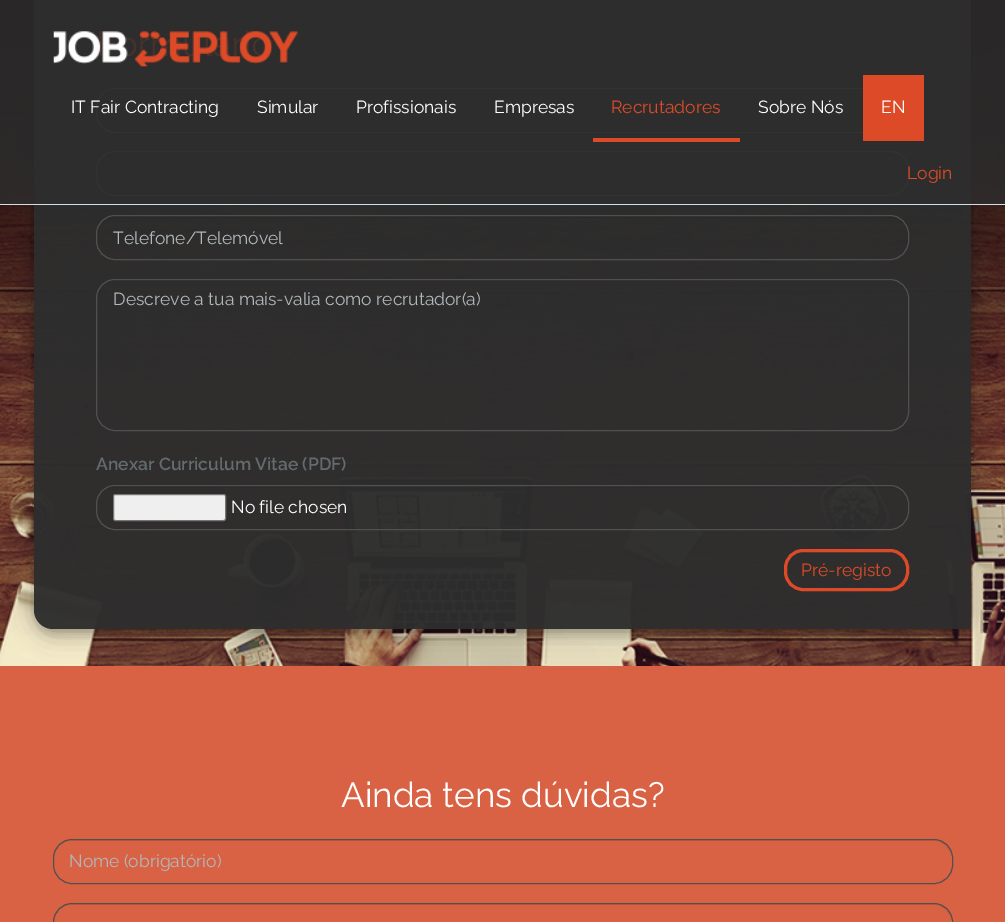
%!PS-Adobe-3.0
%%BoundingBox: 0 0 1005 922
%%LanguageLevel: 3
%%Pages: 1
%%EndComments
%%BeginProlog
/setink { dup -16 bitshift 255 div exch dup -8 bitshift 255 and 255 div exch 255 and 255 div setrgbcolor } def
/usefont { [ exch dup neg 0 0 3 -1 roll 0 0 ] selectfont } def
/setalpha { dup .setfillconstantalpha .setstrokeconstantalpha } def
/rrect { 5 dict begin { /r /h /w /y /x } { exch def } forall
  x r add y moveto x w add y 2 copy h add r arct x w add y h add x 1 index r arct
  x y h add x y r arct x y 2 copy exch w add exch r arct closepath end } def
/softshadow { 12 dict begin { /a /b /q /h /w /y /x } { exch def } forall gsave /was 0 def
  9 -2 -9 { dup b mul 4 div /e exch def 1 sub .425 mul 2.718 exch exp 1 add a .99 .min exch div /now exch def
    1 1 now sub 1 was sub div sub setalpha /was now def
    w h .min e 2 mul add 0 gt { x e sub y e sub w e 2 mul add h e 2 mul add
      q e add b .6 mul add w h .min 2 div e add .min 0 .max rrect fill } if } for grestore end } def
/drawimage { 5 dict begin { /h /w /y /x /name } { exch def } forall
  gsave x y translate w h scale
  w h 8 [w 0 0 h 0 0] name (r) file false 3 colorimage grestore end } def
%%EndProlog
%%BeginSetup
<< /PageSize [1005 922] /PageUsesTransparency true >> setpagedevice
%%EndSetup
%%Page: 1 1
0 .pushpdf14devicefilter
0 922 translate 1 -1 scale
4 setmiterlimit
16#FFFFFF setink
0 0 1005 922 rectfill
(img1.raw) 0 0 1005 666 drawimage
16#D96244 setink
0 666 1005 256 rectfill
gsave
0 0 moveto 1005 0 lineto 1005 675 lineto 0 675 lineto closepath 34 -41 moveto 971 -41 lineto 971 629 lineto 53 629 lineto 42.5 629 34 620.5 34 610 curveto closepath eoclip newpath
16#000000 setink
34 -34 937 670 19 12.5 0.19 softshadow
grestore
gsave
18 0 moveto 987 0 lineto 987 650 lineto 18 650 lineto closepath 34 -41 moveto 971 -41 lineto 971 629 lineto 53 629 lineto 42.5 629 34 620.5 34 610 curveto closepath eoclip newpath
16#000000 setink
34 -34 937 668 19 5 0.2 softshadow
grestore
0.97 setalpha
16#2D2D2D setink
34 -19 moveto 971 -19 lineto 971 629 lineto 53 629 lineto 42.5 629 34 620.5 34 610 curveto closepath fill
1 setalpha
16#292929 setink
115 90 moveto 890 90 lineto 900 90 908 98 908 108 curveto 908 107 lineto 908 97 900 89 890 89 curveto 116 89 lineto 106 89 98 97 98 107 curveto 98 108 lineto 98 98 105 90 115 90 curveto closepath fill
16#505050 setink
96.5 88.5 812 44 18.5 rrect stroke
16#292929 setink
115 154 moveto 890 154 lineto 900 154 908 162 908 171 curveto 908 161 900 153 890 153 curveto 116 153 lineto 106 153 98 161 98 171 curveto 98 162 105 154 115 154 curveto closepath fill
16#505050 setink
96.5 151.5 812 44 18.5 rrect stroke
0.85 setalpha
16#2D2D2D setink
0 0 1005 204 rectfill
1 setalpha
16#D3E0E9 setink
0 204 1005 1 rectfill
(img2.raw) 53 31 245 36 drawimage
/Raleway-Regular 17.5 usefont
16#FFFFFF setink
[
    [(IT Fair Contracting) 71 113]
    [(Simular) 257 113]
    [(Profissionais) 356 113]
    [(Empresas) 494 113]
] { aload pop moveto show } forall
16#DC4A28 setink
593 138 147 4 rectfill
611 113 moveto (Recrutadores) show
16#FFFFFF setink
758 113 moveto (Sobre Nós) show
16#DC4A28 setink
863 75 61 66 rectfill
16#FFFFFF setink
881 113 moveto (EN) show
16#DC4A28 setink
907 179 moveto (Login) show
16#2A2929 setink
115 218 moveto 890 218 lineto 900 218 908 225 908 235 curveto 908 234 lineto 908 224 900 216 890 216 curveto 116 216 lineto 106 216 98 224 98 234 curveto 98 235 lineto 98 225 105 218 115 218 curveto closepath fill
16#505050 setink
96.5 215.5 812 44 18.5 rrect stroke
16#B1B7BA setink
113 244 moveto (Telefone/Telemóvel) show
16#2A2929 setink
115 281 moveto 890 281 lineto 900 281 908 289 908 299 curveto 908 298 lineto 908 288 900 280 890 280 curveto 116 280 lineto 106 280 98 288 98 298 curveto 98 299 lineto 98 289 105 281 115 281 curveto closepath fill
16#505050 setink
96.5 279.5 812 151 18.5 rrect stroke
16#B1B7BA setink
113 305 moveto (Descreve a tua mais-valia como recrutador\(a\)) show
/Raleway-SemiBold 17.5 usefont
16#636B6F setink
96 470 moveto (Anexar Curriculum Vitae \(PDF\)) show
0.07 setalpha
16#000000 setink
115 488 moveto 890 488 lineto 900 488 908 495 908 505 curveto 908 504 lineto 908 494 900 486 890 486 curveto 116 486 lineto 106 486 98 494 98 504 curveto 98 505 lineto 98 495 105 488 115 488 curveto closepath fill
1 setalpha
16#505050 setink
96.5 485.5 812 44 18.5 rrect stroke
16#EFEFEF setink
113.5 494.5 112 26 2 rrect gsave fill grestore
16#767676 setink
stroke
/Raleway-Regular 17.5 usefont
16#FFFFFF setink
231 513 moveto (No file chosen) show
16#DC4A28 setink
3 setlinewidth
785.5 550.5 122 39 17.5 rrect stroke
801 576 moveto (Pré-registo) show
/Raleway-Regular 35 usefont
16#FFFFFF setink
341 807 moveto (Ainda tens dúvidas?) show
16#C95B3F setink
71 841 moveto 934 841 lineto 943 841 951 849 951 859 curveto 951 849 944 840 933 840 curveto 72 840 lineto 61 840 54 849 54 859 curveto 54 849 62 841 71 841 curveto closepath fill
16#505050 setink
1 setlinewidth
53.5 839.5 899 44 18.5 rrect stroke
/Raleway-Regular 17.5 usefont
16#B1B7BA setink
69 867 moveto (Nome \(obrigatório\)) show
16#C95B3F setink
71 905 moveto 934 905 lineto 943 905 951 913 951 922 curveto 951 912 943 904 933 904 curveto 72 904 lineto 62 904 54 912 54 922 curveto 54 913 62 905 71 905 curveto closepath fill
16#505050 setink
53.5 903.5 899 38 18.5 rrect stroke
.poppdf14devicefilter showpage
%%EOF
